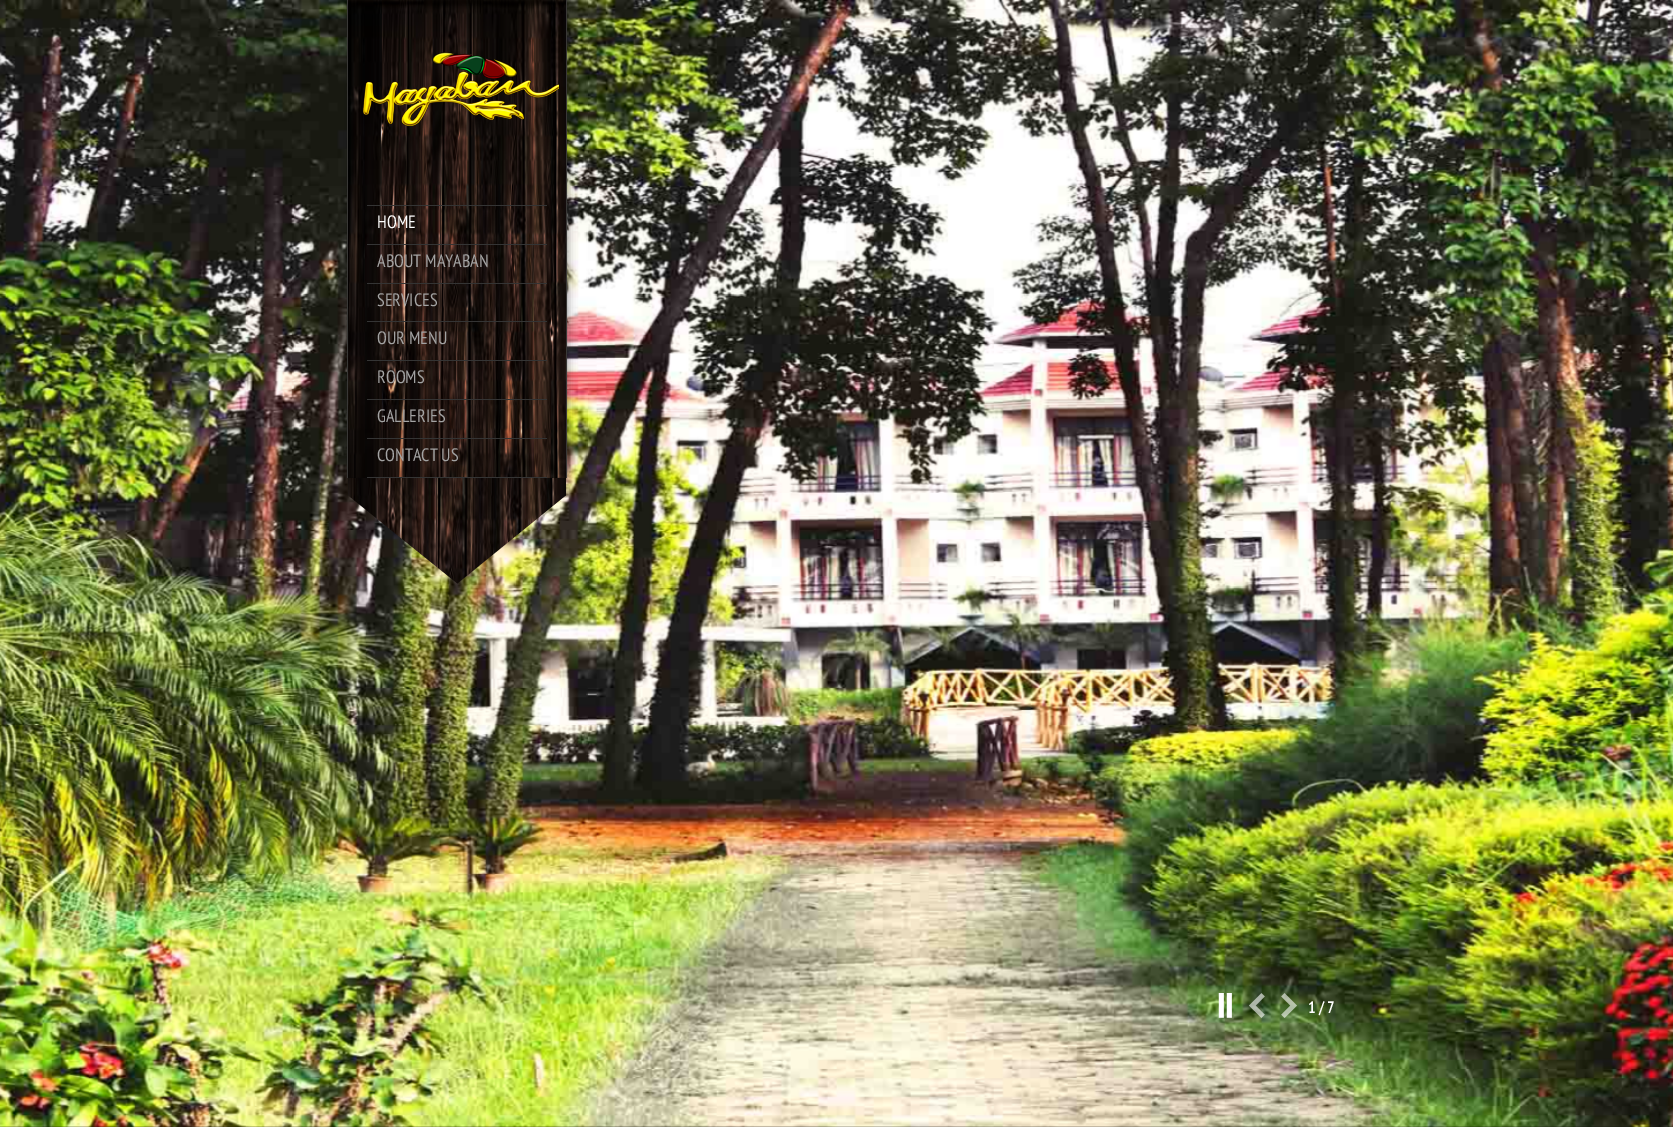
%!PS-Adobe-3.0
%%BoundingBox: 0 0 1673 1127
%%LanguageLevel: 3
%%Pages: 1
%%EndComments
%%BeginProlog
/setink { dup -16 bitshift 255 div exch dup -8 bitshift 255 and 255 div exch 255 and 255 div setrgbcolor } def
/usefont { [ exch dup neg 0 0 3 -1 roll 0 0 ] selectfont } def
/setalpha { dup .setfillconstantalpha .setstrokeconstantalpha } def
/rrect { 5 dict begin { /r /h /w /y /x } { exch def } forall
  x r add y moveto x w add y 2 copy h add r arct x w add y h add x 1 index r arct
  x y h add x y r arct x y 2 copy exch w add exch r arct closepath end } def
/softshadow { 12 dict begin { /a /b /q /h /w /y /x } { exch def } forall gsave /was 0 def
  9 -2 -9 { dup b mul 4 div /e exch def 1 sub .425 mul 2.718 exch exp 1 add a .99 .min exch div /now exch def
    1 1 now sub 1 was sub div sub setalpha /was now def
    w h .min e 2 mul add 0 gt { x e sub y e sub w e 2 mul add h e 2 mul add
      q e add b .6 mul add w h .min 2 div e add .min 0 .max rrect fill } if } for grestore end } def
/drawimage { 5 dict begin { /h /w /y /x /name } { exch def } forall
  gsave x y translate w h scale
  w h 8 [w 0 0 h 0 0] name (r) file false 3 colorimage grestore end } def
%%EndProlog
%%BeginSetup
<< /PageSize [1673 1127] /PageUsesTransparency true >> setpagedevice
%%EndSetup
%%Page: 1 1
0 .pushpdf14devicefilter
0 1127 translate 1 -1 scale
4 setmiterlimit
16#FFFFFF setink
0 0 1673 1127 rectfill
(img2.raw) 0 1126 1673 1 drawimage
(img1.raw) 0 0 1673 1127 drawimage
(img5.raw) 348 478 218 106 drawimage
16#111111 setink
347 -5 220 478 0 5 0.5 softshadow
(img3.raw) 348 0 218 478 drawimage
16#393836 setink
566 0 1 478 rectfill
347 0 1 478 rectfill
(img4.raw) 363 52 196 75 drawimage
16#343434 setink
367 205 180 1 rectfill
367 244 180 1 rectfill
/PTSansNarrow-Regular 18 usefont
16#FFFFFF setink
377 228 moveto (HOME) show
16#343434 setink
367 283 180 1 rectfill
16#A3A3A3 setink
377 267 moveto (ABOUT MAYABAN) show
16#343434 setink
367 321 180 1 rectfill
16#A3A3A3 setink
377 306 moveto (SERVICES) show
16#343434 setink
367 360 180 1 rectfill
16#A3A3A3 setink
377 344 moveto (OUR MENU) show
16#343434 setink
367 399 180 1 rectfill
16#A3A3A3 setink
377 383 moveto (ROOMS) show
16#343434 setink
367 438 180 1 rectfill
16#A3A3A3 setink
377 422 moveto (GALLERIES) show
16#343434 setink
367 477 180 1 rectfill
16#A3A3A3 setink
377 461 moveto (CONTACT US) show
(img6.raw) 1218 993 14 25 drawimage
(img7.raw) 1249 993 16 25 drawimage
(img8.raw) 1281 993 16 25 drawimage
/PTSansNarrow-Bold 16 usefont
16#FFFFFF setink
1308 1013 moveto (1 / 7) show
.poppdf14devicefilter showpage
%%EOF
